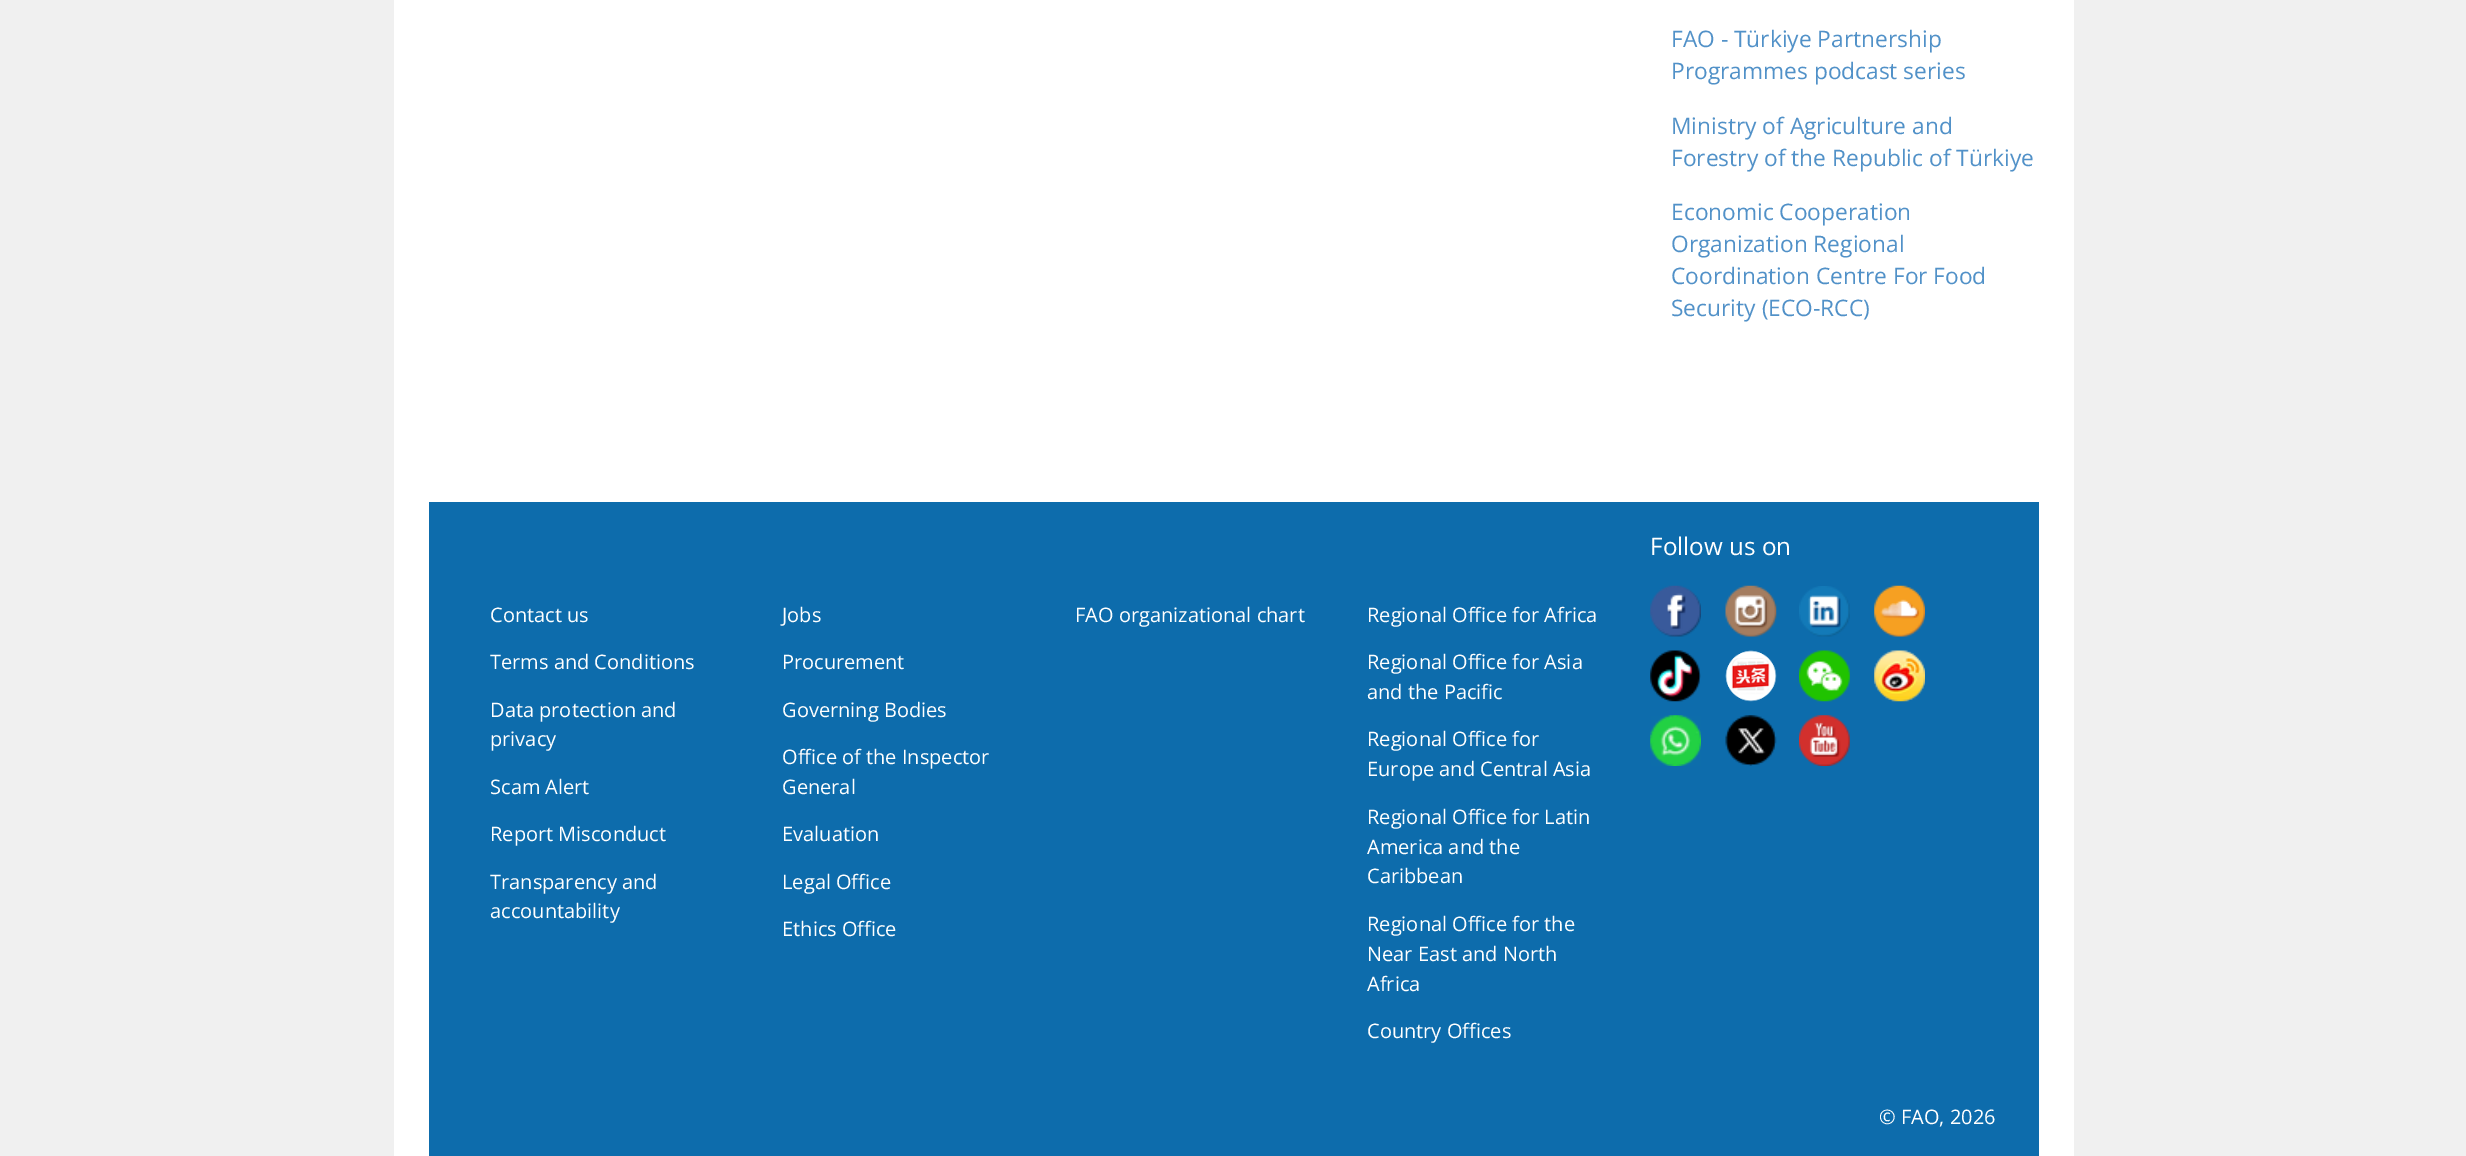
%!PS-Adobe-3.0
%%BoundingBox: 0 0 2466 1156
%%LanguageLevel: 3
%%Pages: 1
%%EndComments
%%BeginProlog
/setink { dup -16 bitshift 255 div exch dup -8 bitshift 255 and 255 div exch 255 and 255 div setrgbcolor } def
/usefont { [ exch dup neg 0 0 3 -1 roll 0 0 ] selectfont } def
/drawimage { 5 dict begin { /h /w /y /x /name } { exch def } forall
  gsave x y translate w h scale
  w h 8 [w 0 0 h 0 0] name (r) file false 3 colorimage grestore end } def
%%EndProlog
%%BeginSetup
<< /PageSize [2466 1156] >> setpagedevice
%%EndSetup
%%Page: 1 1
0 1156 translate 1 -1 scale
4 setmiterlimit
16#F0F0F0 setink
0 0 2466 1156 rectfill
16#FFFFFF setink
394 0 1680 1156 rectfill
/OpenSans-Regular 22.75 usefont
16#5191C8 setink
[
    [(FAO - Türkiye Partnership) 1671 47]
    [(Programmes podcast series) 1671 79]
    [(Ministry of Agriculture and) 1671 134]
    [(Forestry of the Republic of Türkiye) 1671 166]
    [(Economic Cooperation) 1671 220]
    [(Organization Regional) 1671 252]
    [(Coordination Centre For Food) 1671 284]
    [(Security \(ECO-RCC\)) 1671 316]
] { aload pop moveto show } forall
16#0D6CAC setink
429 502 1610 654 rectfill
/OpenSans-Regular 24.25 usefont
16#FFFFFF setink
1650 555 moveto (Follow us on) show
(img1.raw) 1650 585 51 52 drawimage
(img2.raw) 1725 585 52 52 drawimage
(img3.raw) 1799 586 51 51 drawimage
(img4.raw) 1874 585 51 52 drawimage
(img5.raw) 1650 650 51 52 drawimage
(img6.raw) 1725 650 52 52 drawimage
(img7.raw) 1799 650 51 52 drawimage
(img8.raw) 1874 650 51 52 drawimage
(img9.raw) 1650 715 51 51 drawimage
(img10.raw) 1725 715 52 51 drawimage
(img11.raw) 1799 715 51 51 drawimage
/OpenSans-Regular 20 usefont
[
    [(Contact us) 490 622]
    [(Terms and Conditions) 490 669]
    [(Data protection and) 490 717]
    [(privacy) 490 746]
    [(Scam Alert) 490 794]
    [(Report Misconduct) 490 841]
    [(Transparency and) 490 889]
    [(accountability) 490 918]
    [(Jobs) 782 622]
    [(Procurement) 782 669]
    [(Governing Bodies) 782 717]
    [(Office of the Inspector) 782 764]
    [(General) 782 794]
    [(Evaluation) 782 841]
    [(Legal Office) 782 889]
    [(Ethics Office) 782 936]
    [(FAO organizational chart) 1075 622]
    [(Regional Office for Africa) 1367 622]
    [(Regional Office for Asia) 1367 669]
    [(and the Pacific) 1367 699]
    [(Regional Office for) 1367 746]
    [(Europe and Central Asia) 1367 776]
    [(Regional Office for Latin) 1367 824]
    [(America and the) 1367 854]
    [(Caribbean) 1367 883]
    [(Regional Office for the) 1367 931]
    [(Near East and North) 1367 961]
    [(Africa) 1367 991]
    [(Country Offices) 1367 1038]
    [(© FAO, 2026) 1879 1124]
] { aload pop moveto show } forall
showpage
%%EOF
